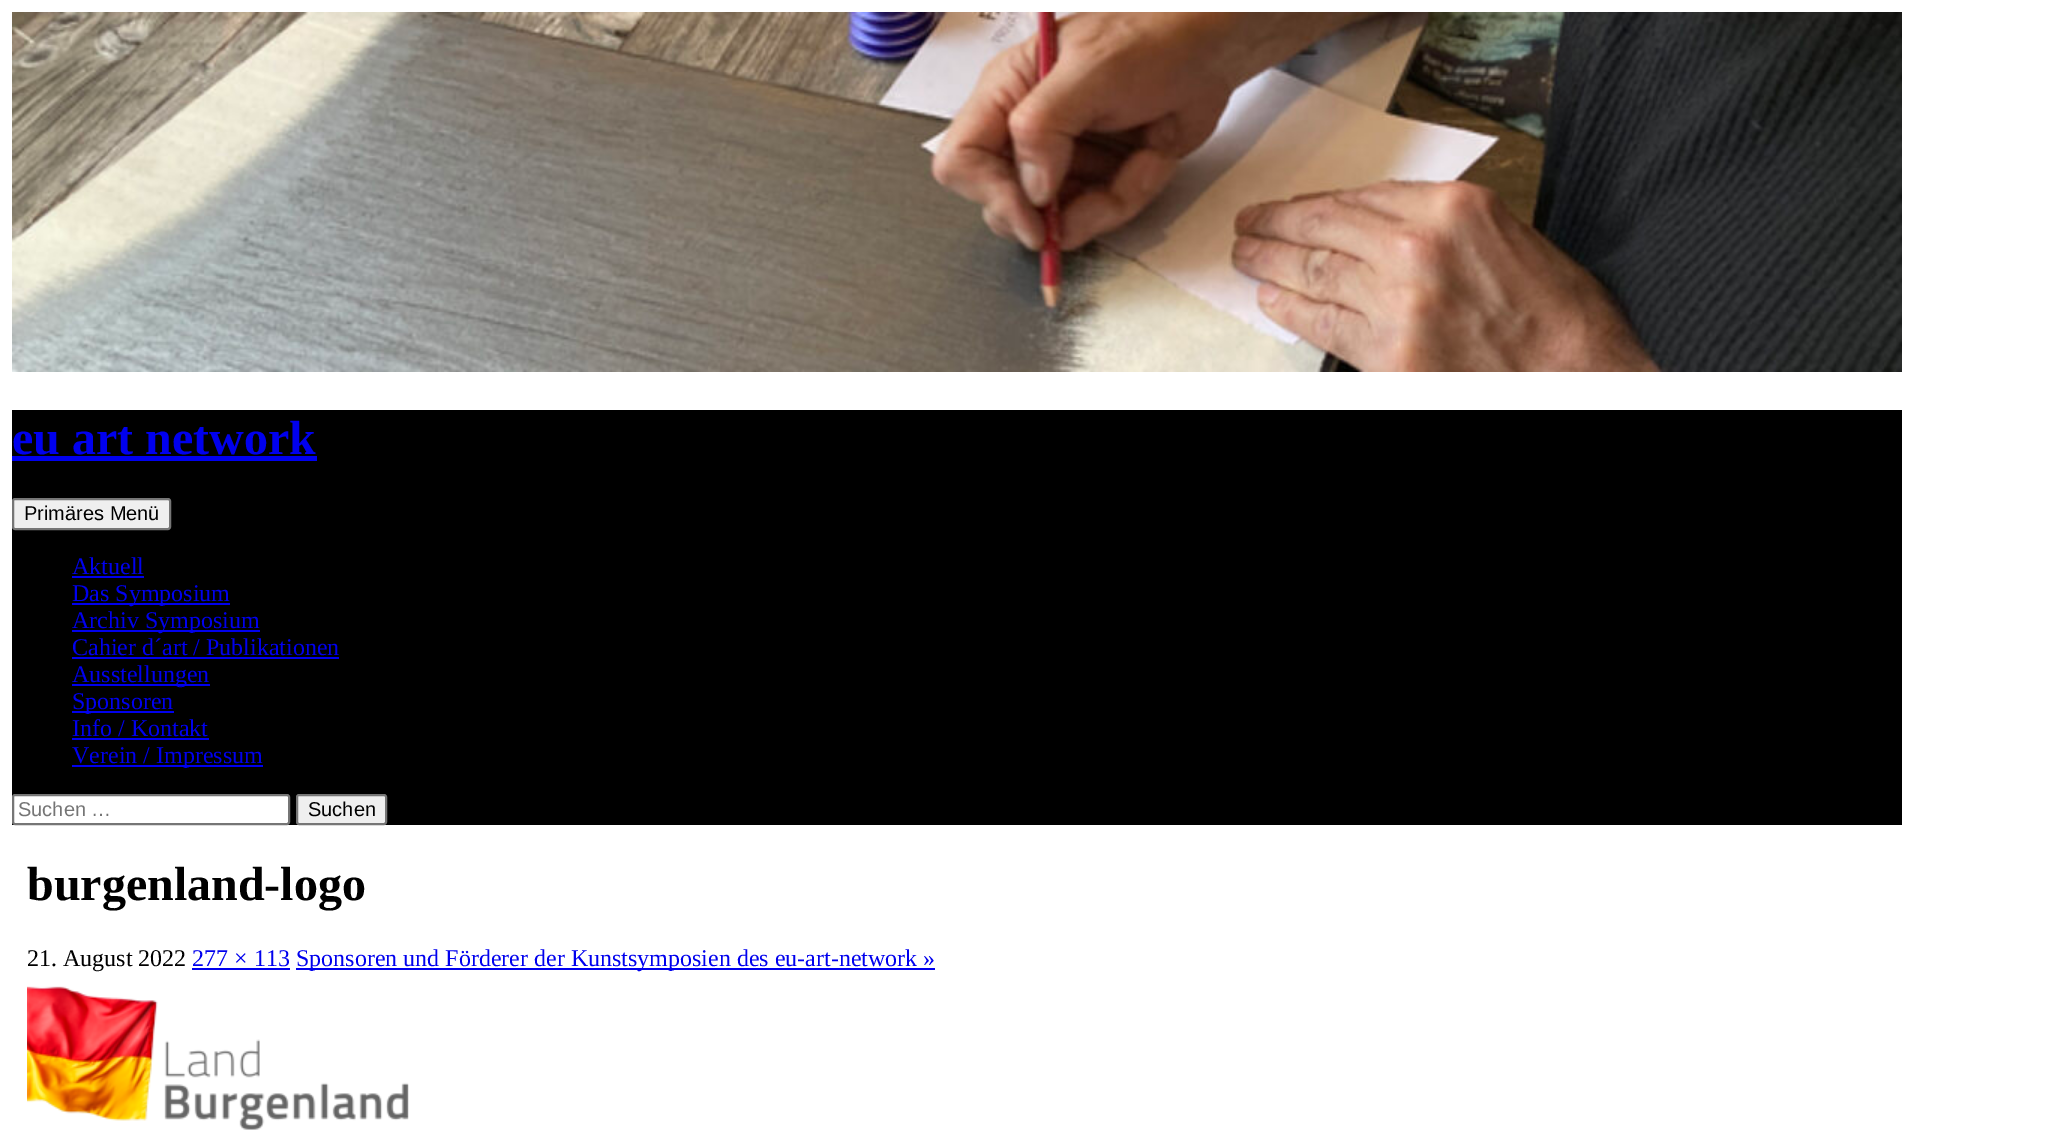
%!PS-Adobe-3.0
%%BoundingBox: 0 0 2047 1148
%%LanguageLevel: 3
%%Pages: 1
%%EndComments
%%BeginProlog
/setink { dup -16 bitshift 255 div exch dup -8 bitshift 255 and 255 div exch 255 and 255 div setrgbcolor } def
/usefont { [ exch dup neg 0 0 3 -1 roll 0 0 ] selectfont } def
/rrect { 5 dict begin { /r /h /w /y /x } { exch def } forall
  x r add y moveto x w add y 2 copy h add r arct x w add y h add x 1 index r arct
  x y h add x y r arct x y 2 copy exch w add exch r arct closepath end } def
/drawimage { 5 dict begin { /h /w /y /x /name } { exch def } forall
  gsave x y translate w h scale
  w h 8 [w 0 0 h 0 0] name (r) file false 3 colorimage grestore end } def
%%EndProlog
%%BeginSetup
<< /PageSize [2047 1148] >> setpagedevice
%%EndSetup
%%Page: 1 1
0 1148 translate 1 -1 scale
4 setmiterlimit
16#FFFFFF setink
0 0 2047 1148 rectfill
(img1.raw) 12 12 1890 360 drawimage
16#000000 setink
12 410 1890 415 rectfill
/LiberationSerif-Bold 48 usefont
16#0000EE setink
12 454 moveto (eu art network) show
12 456 305 5 rectfill
16#EFEFEF setink
13 499 157 30 2 rrect gsave fill grestore
16#767676 setink
2 setlinewidth
stroke
/LiberationSans-Regular 20 usefont
16#000000 setink
24 520 moveto (Primäres Menü) show
/LiberationSerif-Regular 24 usefont
16#0000EE setink
72 574 moveto (Aktuell) show
72 576 72 2 rectfill
72 603 158 2 rectfill
72 601 moveto (Das Symposium) show
72 630 188 2 rectfill
72 628 moveto (Archiv Symposium) show
72 655 moveto (Cahier d´art / Publikationen) show
72 657 267 2 rectfill
72 684 138 2 rectfill
72 682 moveto (Ausstellungen) show
72 711 102 2 rectfill
72 709 moveto (Sponsoren) show
72 736 moveto (Info / Kontakt) show
72 738 137 2 rectfill
72 765 191 2 rectfill
72 763 moveto (Verein / Impressum) show
16#FFFFFF setink
13 795 276 29 2 rrect gsave fill grestore
16#767676 setink
stroke
/LiberationSans-Regular 20 usefont
16#757575 setink
18 816 moveto (Suchen …) show
16#EFEFEF setink
297 795 89 29 2 rrect gsave fill grestore
16#767676 setink
stroke
16#000000 setink
308 816 moveto (Suchen) show
/LiberationSerif-Bold 48 usefont
27 900 moveto (burgenland-logo) show
/LiberationSerif-Regular 24 usefont
27 966 moveto (21. August 2022) show
16#0000EE setink
192 966 moveto (277 × 113) show
192 968 98 2 rectfill
296 968 639 2 rectfill
296 966 moveto (Sponsoren und Förderer der Kunstsymposien des eu-art-network ») show
(img2.raw) 27 986 382 144 drawimage
showpage
%%EOF
